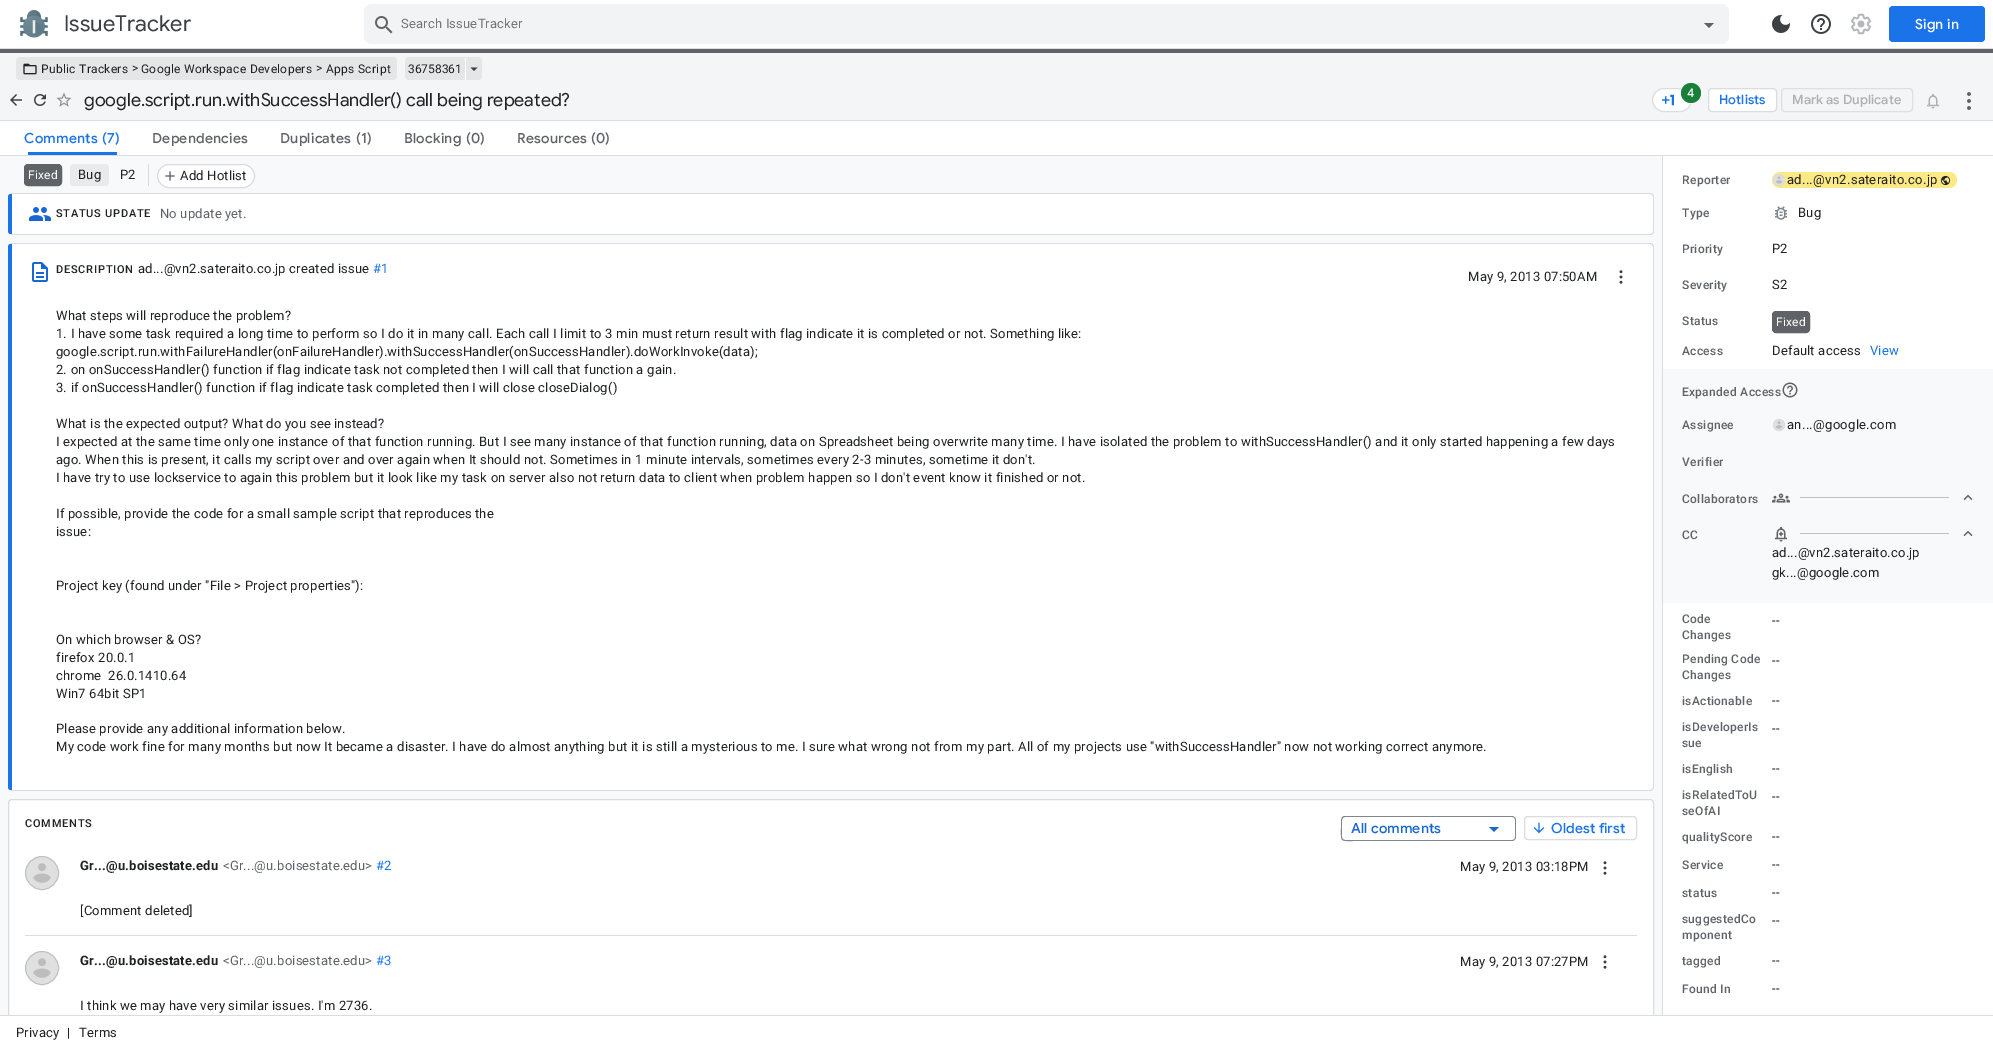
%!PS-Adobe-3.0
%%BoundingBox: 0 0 1993 1050
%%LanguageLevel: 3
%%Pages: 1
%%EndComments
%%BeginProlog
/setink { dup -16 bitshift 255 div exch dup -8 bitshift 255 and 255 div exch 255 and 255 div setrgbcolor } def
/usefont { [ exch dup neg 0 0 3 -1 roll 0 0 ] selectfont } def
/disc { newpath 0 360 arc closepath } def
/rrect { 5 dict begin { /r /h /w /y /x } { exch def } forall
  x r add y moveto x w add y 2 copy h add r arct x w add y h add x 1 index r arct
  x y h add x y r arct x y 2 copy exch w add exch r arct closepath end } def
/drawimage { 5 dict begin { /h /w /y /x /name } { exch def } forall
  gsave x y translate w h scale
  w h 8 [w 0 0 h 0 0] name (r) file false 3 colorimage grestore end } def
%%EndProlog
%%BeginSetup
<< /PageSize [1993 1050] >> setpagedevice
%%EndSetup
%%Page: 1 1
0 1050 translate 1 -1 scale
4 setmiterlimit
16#FFFFFF setink
0 0 1993 1050 rectfill
(img1.raw) 20 10 28 28 drawimage
/GoogleSans-Regular 22 usefont
16#3C4043 setink
64 31 moveto 0.1 0 (IssueTracker) ashow
16#F1F3F4 setink
364 4 1365 40 8 rrect fill
(img2.raw) 375 16 18 18 drawimage
/Roboto-Regular 13 usefont
16#757575 setink
401 28 moveto 0.19 0 (Search IssueTracker) ashow
16#5F6368 setink
1704 23 moveto 1709 28 lineto 1714 23 lineto closepath fill
(img3.raw) 1772 15 18 18 drawimage
(img4.raw) 1811 14 20 20 drawimage
(img5.raw) 1851 13 20 22 drawimage
16#1A73E8 setink
1889 6 96 36 4 rrect fill
/GoogleSans-Medium 14 usefont
16#FFFFFF setink
1915 29 moveto 0.25 0 (Sign in) ashow
[
    [0 48 1993 1 16#DADCE0]
    [0 53 1993 67 16#F4F5F6]
    [0 49 1993 4 16#5F6368]
    [0 120 1993 1 16#DADCE0]
] { aload pop setink rectfill } forall
16#E5E6E7 setink
16 57 381 23 4 rrect fill
(img6.raw) 23 63 14 12 drawimage
/Roboto-Regular 12 usefont
16#202124 setink
41 73 moveto 0.3 0 (Public Trackers) ashow
132 72 moveto 0.3 0 (>) ashow
141 73 moveto 0.3 0 (Google Workspace Developers) ashow
316 72 moveto 0.3 0 (>) ashow
326 73 moveto 0.3 0 (Apps Script) ashow
16#E5E6E7 setink
405 57 77 23 4 rrect fill
16#202124 setink
408 73 moveto (36758361) show
16#FFFFFF setink
465 58 1 22 rectfill
16#3C4043 setink
470.5 67.5 moveto 474 71 lineto 477.5 67.5 lineto closepath fill
(img7.raw) 10 94 12 12 drawimage
(img8.raw) 34 94 12 12 drawimage
(img9.raw) 56 92 16 15 drawimage
/GoogleSans-Regular 18 usefont
16#202124 setink
84 106 moveto (google.script.run.withSuccessHandler\(\) call being repeated?) show
16#FFFFFF setink
1652.5 88.5 39 23 11.5 rrect gsave fill grestore
16#DADCE0 setink
stroke
16#FFFFFF setink
1691 93 10.5 disc stroke
16#188038 setink
1691 93 10 disc fill
/GoogleSans-Medium 12 usefont
16#FFFFFF setink
1687 97 moveto 0.1 0 (4) ashow
(img10.raw) 1662 94 12 12 drawimage
1708.5 88.5 68 23 3.5 rrect gsave fill grestore
16#DADCE0 setink
stroke
/GoogleSans-Medium 13 usefont
16#1A73E8 setink
1719 104 moveto 0.1 0 (Hotlists) ashow
16#DEDFE1 setink
1781.5 88.5 131 23 3.5 rrect stroke
16#AEB0B2 setink
1792 104 moveto 0.1 0 (Mark as Duplicate) ashow
(img11.raw) 1927 94 12 15 drawimage
(img12.raw) 1967 92 4 18 drawimage
16#DADCE0 setink
0 155 1993 1 rectfill
/GoogleSans-Medium 14 usefont
16#1A73E8 setink
24 143 moveto 0.25 0 (Comments) ashow
102 143 moveto 0.25 0 (\(7\)) ashow
28 152 89 3 rectfill
16#5F6368 setink
152 143 moveto 0.25 0 (Dependencies) ashow
280 143 moveto 0.25 0 (Duplicates) ashow
356 143 moveto 0.25 0 (\(1\)) ashow
404 143 moveto 0.25 0 (Blocking) ashow
466 143 moveto 0.25 0 (\(0\)) ashow
517 143 moveto 0.25 0 (Resources) ashow
591 143 moveto 0.25 0 (\(0\)) ashow
16#F8F9FA setink
0 156 1662 859 rectfill
16#DADCE0 setink
148 164 1 22 rectfill
16#5F6368 setink
24.5 164.5 37 21 3.5 rrect gsave fill grestore
stroke
/Roboto-Regular 12 usefont
16#FFFFFF setink
28 179 moveto 0.19 0 (Fixed) ashow
16#E9EAEB setink
70 164 39 22 4 rrect fill
/Roboto-Regular 13 usefont
16#202124 setink
78 179 moveto 0.19 0 (Bug) ashow
120 179 moveto 0.19 0 (P2) ashow
16#FFFFFF setink
157.5 164.5 97 23 11.5 rrect gsave fill grestore
16#DADCE0 setink
stroke
(img13.raw) 165 171 10 10 drawimage
16#202124 setink
180 180 moveto 0.19 0 (Add Hotlist) ashow
16#FFFFFF setink
12 194 moveto 1650 194 lineto 1652 194 1653 195 1653 197 curveto 1653 231 lineto 1653 233 1652 234 1650 234 curveto 12 234 lineto closepath fill
16#DADCE0 setink
12 193 moveto 10 194 lineto 12 194 lineto 1650 194 lineto 1652 195 lineto 1653 194 lineto 1650 193 lineto closepath fill
1654 231 moveto 1654 197 lineto 1654 196 1653.5 195 1653 194 curveto 1652 195 lineto 1653 195 1653 196 1653 197 curveto 1653 231 lineto 1653 232 1653 233 1652 233 curveto 1653 234 lineto 1653.5 233 1654 232 1654 231 curveto closepath fill
12 235 moveto 1650 235 lineto 1653 234 lineto 1652 233 lineto 1650 234 lineto 12 234 lineto 10 234 lineto closepath fill
16#1A73E8 setink
12 194 moveto 10 194 lineto 9 194 8 196 8 197 curveto 8 231 lineto 8 232 9 234 10 234 curveto 12 234 lineto closepath fill
(img14.raw) 29 207 22 14 drawimage
/Roboto-Medium 11 usefont
16#202124 setink
56 217 moveto 0.75 0 (STATUS UPDATE) ashow
/Roboto-Regular 13 usefont
16#5F6368 setink
160 218 moveto 0.19 0 (No update yet.) ashow
16#FFFFFF setink
12 244 moveto 1650 244 lineto 1652 244 1653 245 1653 247 curveto 1653 787 lineto 1653 789 1652 790 1650 790 curveto 12 790 lineto closepath fill
16#DADCE0 setink
12 243 moveto 10 244 lineto 12 244 lineto 1650 244 lineto 1652 245 lineto 1653 244 lineto 1650 243 lineto closepath fill
1654 787 moveto 1654 247 lineto 1653 244 lineto 1652 245 lineto 1653 247 lineto 1653 787 lineto 1652 789 lineto 1653 790 lineto closepath fill
12 791 moveto 1650 791 lineto 1653 790 lineto 1652 789 lineto 1650 790 lineto 12 790 lineto 10 790 lineto closepath fill
16#1A73E8 setink
12 244 moveto 10 244 lineto 9 244 8 246 8 247 curveto 8 787 lineto 8 788 9 790 10 790 curveto 12 790 lineto closepath fill
(img15.raw) 32 262 16 20 drawimage
/Roboto-Medium 11 usefont
16#202124 setink
56 273 moveto 0.75 0 (DESCRIPTION) ashow
/Roboto-Regular 13 usefont
138 273 moveto 0.19 0 (ad...@vn2.sateraito.co.jp created issue) ashow
16#1A73E8 setink
373 273 moveto 0.19 0 (#1) ashow
16#202124 setink
1468 281 moveto 0.19 0 (May 9, 2013 07:50AM) ashow
(img16.raw) 1619 270 4 14 drawimage
56 320 moveto 0.19 0 (What steps will reproduce the problem?) ashow
56 338 moveto 0.19 0 (1. I have some task required a long time to perform so I do it in many call. Each call I limit to 3 min must return result with flag indicate it is completed or not. Something like:) ashow
56 356 moveto 0.19 0 (google.script.run.withFailureHandler\(onFailureHandler\).withSuccessHandler\(onSuccessHandler\).doWorkInvoke\(data\);) ashow
56 374 moveto 0.19 0 (2. on onSuccessHandler\(\) function if flag indicate task not completed then I will call that function a gain.) ashow
56 392 moveto 0.19 0 (3. if onSuccessHandler\(\) function if flag indicate task completed then I will close closeDialog\(\)) ashow
56 428 moveto 0.19 0 (What is the expected output? What do you see instead?) ashow
56 446 moveto 0.19 0 (I expected at the same time only one instance of that function running. But I see many instance of that function running, data on Spreadsheet being overwrite many time. I have isolated the problem to withSuccessHandler\(\) and it only started happening a few days) ashow
56 464 moveto 0.19 0 (ago. When this is present, it calls my script over and over again when It should not. Sometimes in 1 minute intervals, sometimes every 2-3 minutes, sometime it don't.) ashow
56 482 moveto 0.19 0 (I have try to use lockservice to again this problem but it look like my task on server also not return data to client when problem happen so I don't event know it finished or not.) ashow
56 518 moveto 0.19 0 (If possible, provide the code for a small sample script that reproduces the) ashow
56 536 moveto 0.19 0 (issue:) ashow
56 590 moveto 0.19 0 (Project key \(found under "File > Project properties"\):) ashow
56 644 moveto 0.19 0 (On which browser & OS?) ashow
56 662 moveto 0.19 0 (firefox 20.0.1) ashow
56 680 moveto 0.19 0 (chrome  26.0.1410.64) ashow
56 698 moveto 0.19 0 (Win7 64bit SP1) ashow
56 733 moveto 0.19 0 (Please provide any additional information below.) ashow
56 751 moveto 0.19 0 (My code work fine for many months but now It became a disaster. I have do almost anything but it is still a mysterious to me. I sure what wrong not from my part. All of my projects use "withSuccessHandler" now not working correct anymore.) ashow
16#FFFFFF setink
12 799 moveto 1650 799 lineto 1652 799 1654 801 1654 803 curveto 1654 1015 lineto 8 1015 lineto 8 803 lineto 8 801 10 799 12 799 curveto closepath fill
16#DADCE0 setink
0 1015 1993 1 rectfill
gsave
0 156 1662 859 rectclip
8.5 799.5 1645 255 3.5 rrect stroke
grestore
/Roboto-Medium 11 usefont
16#202124 setink
25 827 moveto 0.75 0 (COMMENTS) ashow
/GoogleSans-Medium 14 usefont
16#1967D2 setink
1351 833 moveto 0.1 0 (All comments) ashow
16#80868B setink
1345 816 moveto 1353 816 lineto 1353 841 lineto 1340 841 1341 842 1341 828.5 curveto 1341 823 lineto 1341 820 1341 816 1345 816 curveto closepath 1345 817 moveto 1353 817 lineto 1353 840 lineto 1345 840 lineto 1343.5 840 1342 838.5 1342 837 curveto 1342 820 lineto 1342 818.5 1343.5 817 1345 817 curveto closepath eofill
16#1967D2 setink
1489 827 moveto 1494 832 lineto 1499 827 lineto closepath fill
16#80868B setink
1353 816 moveto 1512 816 lineto 1514 816 1516 818 1516 820 curveto 1516 837 lineto 1516 839 1514 841 1512 841 curveto 1353 841 lineto closepath 1353 817 moveto 1512 817 lineto 1514 817 1515 818 1515 820 curveto 1515 837 lineto 1515 839 1514 840 1512 840 curveto 1353 840 lineto closepath eofill
16#DADCE0 setink
1524.5 816.5 112 23 3.5 rrect stroke
(img17.raw) 1533 822 12 12 drawimage
16#1A73E8 setink
1551 833 moveto 0.1 0 (Oldest first) ashow
16#DADCE0 setink
25 935 1612 1 rectfill
(img18.raw) 26 857 32 32 drawimage
16#BDC1C6 setink
42 873 16.5 disc stroke
/Roboto-Bold 13 usefont
16#202124 setink
80 870 moveto 0.19 0 (Gr...@u.boisestate.edu) ashow
/Roboto-Regular 13 usefont
16#5F6368 setink
223 870 moveto 0.19 0 (<Gr...@u.boisestate.edu>) ashow
16#1A73E8 setink
376 870 moveto 0.19 0 (#2) ashow
16#202124 setink
1460 871 moveto 0.19 0 (May 9, 2013 03:18PM) ashow
(img16.raw) 1603 861 4 14 drawimage
80 915 moveto 0.19 0 ([Comment deleted]) ashow
(img18.raw) 26 952 32 32 drawimage
16#BDC1C6 setink
42 968 16.5 disc stroke
/Roboto-Bold 13 usefont
16#202124 setink
80 965 moveto 0.19 0 (Gr...@u.boisestate.edu) ashow
/Roboto-Regular 13 usefont
16#5F6368 setink
223 965 moveto 0.19 0 (<Gr...@u.boisestate.edu>) ashow
16#1A73E8 setink
376 965 moveto 0.19 0 (#3) ashow
16#202124 setink
1460 966 moveto 0.19 0 (May 9, 2013 07:27PM) ashow
(img16.raw) 1603 955 4 14 drawimage
80 1010 moveto 0.19 0 (I think we may have very similar issues. I'm 2736.) ashow
16#DADCE0 setink
1662 156 1 859 rectfill
/Roboto-Medium 12 usefont
16#5F6368 setink
1682 184 moveto 0.3 0 (Reporter) ashow
16#FBE983 setink
1772 172 185 16 8 rrect fill
(img19.raw) 1773 174 12 12 drawimage
16#DADCE0 setink
1779 180 5.5 disc stroke
/Roboto-Regular 13 usefont
16#202124 setink
1787 184 moveto 0.3 0 (ad...@vn2.sateraito.co.jp) ashow
(img20.raw) 1940 175 11 11 drawimage
/Roboto-Medium 12 usefont
16#5F6368 setink
1682 217 moveto 0.3 0 (Type) ashow
(img21.raw) 1775 206 12 14 drawimage
/Roboto-Regular 13 usefont
16#202124 setink
1798 217 moveto 0.19 0 (Bug) ashow
/Roboto-Medium 12 usefont
16#5F6368 setink
1682 253 moveto 0.3 0 (Priority) ashow
/Roboto-Regular 13 usefont
16#202124 setink
1772 253 moveto 0.19 0 (P2) ashow
/Roboto-Medium 12 usefont
16#5F6368 setink
1682 289 moveto 0.3 0 (Severity) ashow
/Roboto-Regular 13 usefont
16#202124 setink
1772 289 moveto 0.19 0 (S2) ashow
/Roboto-Medium 12 usefont
16#5F6368 setink
1682 325 moveto 0.3 0 (Status) ashow
1772.5 311.5 37 21 3.5 rrect gsave fill grestore
stroke
/Roboto-Regular 12 usefont
16#FFFFFF setink
1776 326 moveto 0.19 0 (Fixed) ashow
/Roboto-Medium 12 usefont
16#5F6368 setink
1682 355 moveto 0.3 0 (Access) ashow
/Roboto-Regular 13 usefont
16#202124 setink
1772 355 moveto 0.19 0 (Default access) ashow
16#1A73E8 setink
1870 355 moveto 0.19 0 (View) ashow
16#F8F9FA setink
1663 369 330 234 rectfill
/Roboto-Medium 12 usefont
16#5F6368 setink
1682 396 moveto 0.3 0 (Expanded Access) ashow
(img22.raw) 1782 382 16 16 drawimage
1682 429 moveto 0.3 0 (Assignee) ashow
(img23.raw) 1773 419 12 12 drawimage
16#DADCE0 setink
1779 425 5.5 disc stroke
/Roboto-Regular 13 usefont
16#202124 setink
1787 429 moveto 0.3 0 (an...@google.com) ashow
/Roboto-Medium 12 usefont
16#5F6368 setink
1682 466 moveto 0.3 0 (Verifier) ashow
1682 503 moveto 0.3 0 (Collaborators) ashow
(img24.raw) 1772 493 18 10 drawimage
16#BDC1C6 setink
1800 497 149 1 rectfill
(img25.raw) 1963 494 10 7 drawimage
16#5F6368 setink
1682 539 moveto 0.3 0 (CC) ashow
(img26.raw) 1775 526 12 16 drawimage
16#BDC1C6 setink
1800 533 149 1 rectfill
(img25.raw) 1963 530 10 7 drawimage
/Roboto-Regular 13 usefont
16#202124 setink
1772 557 moveto 0.19 0 (ad...@vn2.sateraito.co.jp) ashow
1772 577 moveto 0.19 0 (gk...@google.com) ashow
/Roboto-Medium 12 usefont
16#5F6368 setink
1682 623 moveto 0.3 0 (Code) ashow
1682 639 moveto 0.3 0 (Changes) ashow
/Roboto-Regular 13 usefont
16#202124 setink
1772 625 moveto 0.19 0 (--) ashow
/Roboto-Medium 12 usefont
16#5F6368 setink
1682 663 moveto 0.3 0 (Pending Code) ashow
1682 679 moveto 0.3 0 (Changes) ashow
/Roboto-Regular 13 usefont
16#202124 setink
1772 665 moveto 0.19 0 (--) ashow
/Roboto-Medium 12 usefont
16#5F6368 setink
1682 705 moveto 0.3 0 (isActionable) ashow
/Roboto-Regular 13 usefont
16#202124 setink
1772 705 moveto 0.19 0 (--) ashow
/Roboto-Medium 12 usefont
16#5F6368 setink
1682 731 moveto 0.3 0 (isDeveloperIs) ashow
1682 747 moveto 0.3 0 (sue) ashow
/Roboto-Regular 13 usefont
16#202124 setink
1772 733 moveto 0.19 0 (--) ashow
/Roboto-Medium 12 usefont
16#5F6368 setink
1682 773 moveto 0.3 0 (isEnglish) ashow
/Roboto-Regular 13 usefont
16#202124 setink
1772 773 moveto 0.19 0 (--) ashow
/Roboto-Medium 12 usefont
16#5F6368 setink
1682 799 moveto 0.3 0 (isRelatedToU) ashow
1682 815 moveto 0.3 0 (seOfAI) ashow
/Roboto-Regular 13 usefont
16#202124 setink
1772 801 moveto 0.19 0 (--) ashow
/Roboto-Medium 12 usefont
16#5F6368 setink
1682 841 moveto 0.3 0 (qualityScore) ashow
/Roboto-Regular 13 usefont
16#202124 setink
1772 841 moveto 0.19 0 (--) ashow
/Roboto-Medium 12 usefont
16#5F6368 setink
1682 869 moveto 0.3 0 (Service) ashow
/Roboto-Regular 13 usefont
16#202124 setink
1772 869 moveto 0.19 0 (--) ashow
/Roboto-Medium 12 usefont
16#5F6368 setink
1682 897 moveto 0.3 0 (status) ashow
/Roboto-Regular 13 usefont
16#202124 setink
1772 897 moveto 0.19 0 (--) ashow
/Roboto-Medium 12 usefont
16#5F6368 setink
1682 923 moveto 0.3 0 (suggestedCo) ashow
1682 939 moveto 0.3 0 (mponent) ashow
/Roboto-Regular 13 usefont
16#202124 setink
1772 925 moveto 0.19 0 (--) ashow
/Roboto-Medium 12 usefont
16#5F6368 setink
1682 965 moveto 0.3 0 (tagged) ashow
/Roboto-Regular 13 usefont
16#202124 setink
1772 965 moveto 0.19 0 (--) ashow
/Roboto-Medium 12 usefont
16#5F6368 setink
1682 993 moveto 0.3 0 (Found In) ashow
/Roboto-Regular 13 usefont
16#202124 setink
1772 993 moveto 0.19 0 (--) ashow
16 1037 moveto 0.19 0 (Privacy) ashow
67 1037 moveto 0.19 0 (|) ashow
79 1037 moveto 0.19 0 (Terms) ashow
showpage
%%EOF
